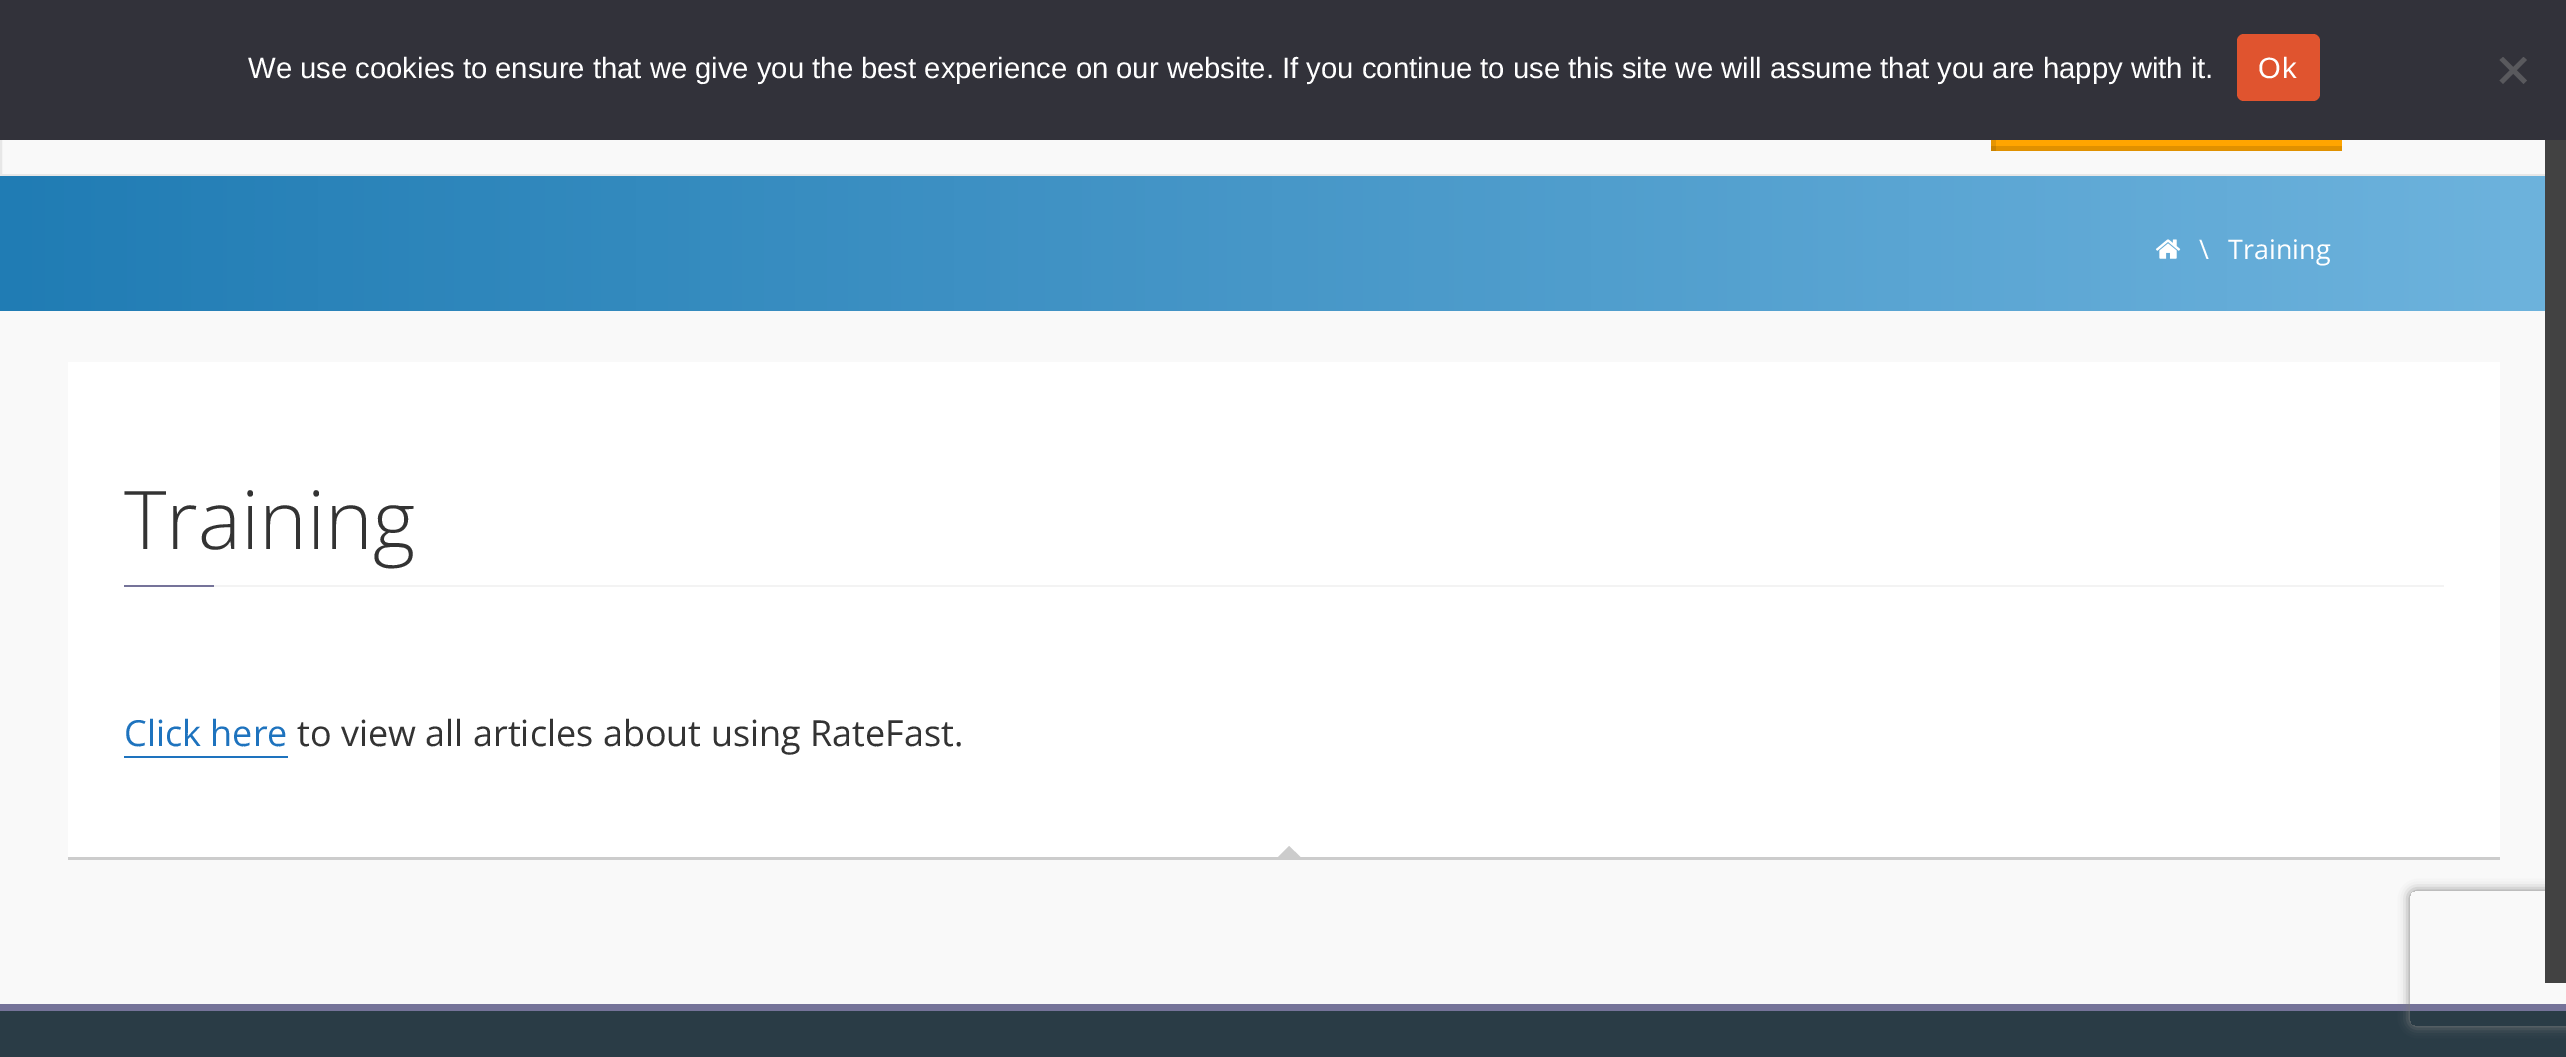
%!PS-Adobe-3.0
%%BoundingBox: 0 0 2566 1057
%%LanguageLevel: 3
%%Pages: 1
%%EndComments
%%BeginProlog
/setink { dup -16 bitshift 255 div exch dup -8 bitshift 255 and 255 div exch 255 and 255 div setrgbcolor } def
/usefont { [ exch dup neg 0 0 3 -1 roll 0 0 ] selectfont } def
/setalpha { dup .setfillconstantalpha .setstrokeconstantalpha } def
/rrect { 5 dict begin { /r /h /w /y /x } { exch def } forall
  x r add y moveto x w add y 2 copy h add r arct x w add y h add x 1 index r arct
  x y h add x y r arct x y 2 copy exch w add exch r arct closepath end } def
/softshadow { 12 dict begin { /a /b /q /h /w /y /x } { exch def } forall gsave /was 0 def
  9 -2 -9 { dup b mul 4 div /e exch def 1 sub .425 mul 2.718 exch exp 1 add a .99 .min exch div /now exch def
    1 1 now sub 1 was sub div sub setalpha /was now def
    w h .min e 2 mul add 0 gt { x e sub y e sub w e 2 mul add h e 2 mul add
      q e add b .6 mul add w h .min 2 div e add .min 0 .max rrect fill } if } for grestore end } def
/drawimage { 5 dict begin { /h /w /y /x /name } { exch def } forall
  gsave x y translate w h scale
  w h 8 [w 0 0 h 0 0] name (r) file false 3 colorimage grestore end } def
%%EndProlog
%%BeginSetup
<< /PageSize [2566 1057] /PageUsesTransparency true >> setpagedevice
%%EndSetup
%%Page: 1 1
0 .pushpdf14devicefilter
0 1057 translate 1 -1 scale
4 setmiterlimit
16#F9F9F9 setink
0 0 2566 1057 rectfill
16#E7E7E7 setink
2 setlinewidth
1 -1 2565 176 rectstroke
[
    [1996 140 346 6 16#FFA500]
    [1991 146 351 5 16#E09100]
    [1991 140 5 11 16#E69500]
    [1991 146 5 5 16#CA8300]
    [0 0 2566 140 16#32323A]
] { aload pop setink rectfill } forall
/LiberationSans-Regular 29.25 usefont
16#FFFFFF setink
248 78 moveto (We use cookies to ensure that we give you the best experience on our website. If you continue to use this site we will assume that you are happy with it.) show
16#E0542F setink
2237 34 83 67 7 rrect fill
16#FFFFFF setink
2258 78 moveto 1 0 (Ok) ashow
16#59595D setink
2523.5 57 moveto 2527 60 lineto 2503 84 lineto 2499.5 80.5 lineto closepath fill
2499.5 60 moveto 2503 57 lineto 2527 80.5 lineto 2523.5 84 lineto closepath fill
gsave 0 176 moveto 2545 176 lineto 2545 311 lineto 0 311 lineto closepath clip newpath
<< /ShadingType 2 /ColorSpace /DeviceRGB /Coords [0 243 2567 243] /Extend [true true] /Function << /FunctionType 2 /Domain [0 1] /C0 [0.125 0.486 0.706] /C1 [0.431 0.702 0.867] /N 1 >> >> shfill grestore
(img1.raw) 2155 239 26 20 drawimage
/OpenSans-Regular 27 usefont
16#FFFFFF setink
2199 259 moveto (\\) show
2228 259 moveto (Training) show
16#CCCCCC setink
68 857 moveto 68 860 lineto 2500 860 lineto 2500 365 lineto 2500 857 lineto closepath fill
16#FFFFFF setink
68 362 2432 495 rectfill
16#F3F3F3 setink
214 585 2230 2 rectfill
/OpenSans-Light 81 usefont
16#333333 setink
124 549 moveto (Training) show
16#757399 setink
124 585 90 2 rectfill
/OpenSans-Regular 36 usefont
16#1E73BE setink
124 746 moveto (Click here) show
124 756 164 2 rectfill
16#333333 setink
297 746 moveto (to view all articles about using RateFast.) show
16#CCCCCC setink
1300.5 857 moveto 1278 857 lineto 1289 846 lineto closepath fill
16#2A3C46 setink
0 1011 2566 46 rectfill
16#757399 setink
0 1004 2566 7 rectfill
gsave
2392 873 moveto 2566 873 lineto 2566 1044 lineto 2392 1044 lineto closepath 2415 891 moveto 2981 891 lineto 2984 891 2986 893 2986 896 curveto 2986 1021 lineto 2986 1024 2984 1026 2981 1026 curveto 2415 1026 lineto 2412 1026 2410 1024 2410 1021 curveto 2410 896 lineto 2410 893 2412 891 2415 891 curveto closepath eoclip newpath
16#808080 setink
2410 891 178 135 5 5.5 1 softshadow
grestore
16#424242 setink
2545 140 21 843 rectfill
.poppdf14devicefilter showpage
%%EOF
